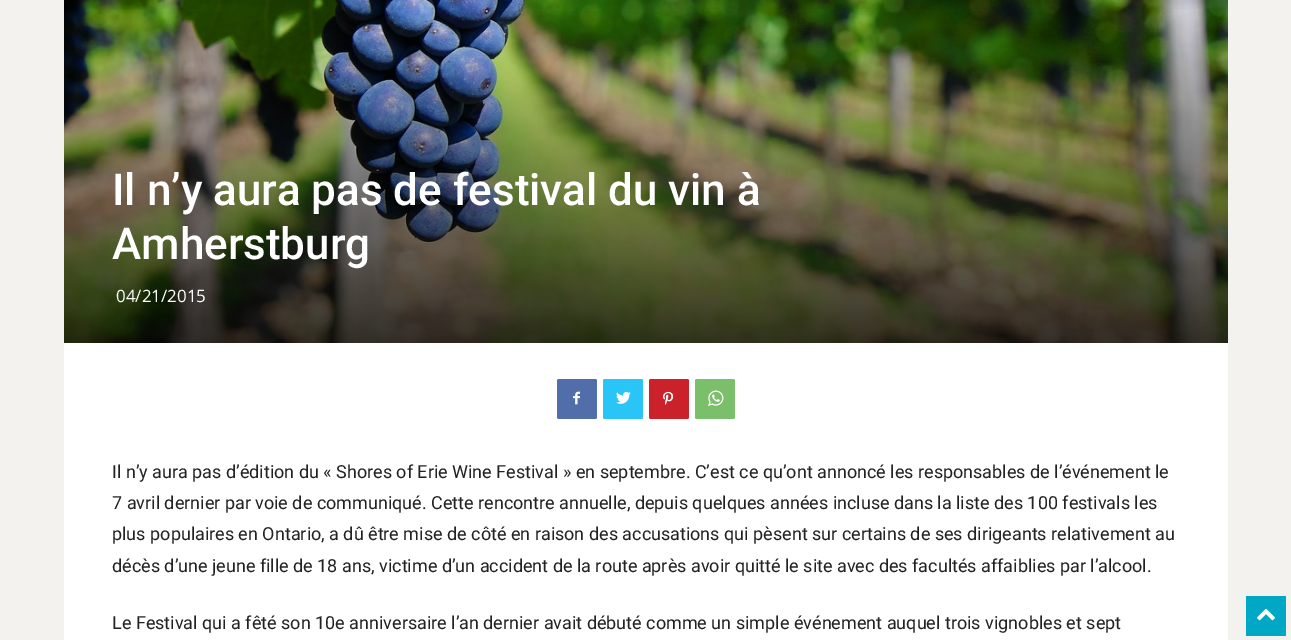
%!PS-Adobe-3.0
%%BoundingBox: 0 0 1291 640
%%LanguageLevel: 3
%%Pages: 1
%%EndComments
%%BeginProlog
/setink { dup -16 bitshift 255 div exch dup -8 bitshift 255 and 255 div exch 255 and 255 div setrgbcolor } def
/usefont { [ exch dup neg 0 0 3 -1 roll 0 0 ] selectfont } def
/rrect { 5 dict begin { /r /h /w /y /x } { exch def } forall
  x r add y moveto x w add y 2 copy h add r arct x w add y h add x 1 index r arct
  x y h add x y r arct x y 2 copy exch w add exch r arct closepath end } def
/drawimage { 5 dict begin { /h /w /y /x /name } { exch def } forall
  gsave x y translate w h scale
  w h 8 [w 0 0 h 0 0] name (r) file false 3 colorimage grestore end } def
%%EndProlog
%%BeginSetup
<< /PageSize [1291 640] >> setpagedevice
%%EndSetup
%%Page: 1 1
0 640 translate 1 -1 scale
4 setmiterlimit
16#F4F2EE setink
0 0 1291 640 rectfill
(img2.raw) 64 0 1164 343 drawimage
(img1.raw) 84 0 1144 9 drawimage
16#FFFFFF setink
64 343 1164 297 rectfill
/Roboto-Medium 44 usefont
112 205 moveto (Il n’y aura pas de festival du vin à) show
112 259 moveto (Amherstburg) show
/OpenSans-Regular 17 usefont
116 302 moveto (04/21/2015) show
16#516EAB setink
557 379 40 40 2 rrect fill
(img3.raw) 573 391 7 14 drawimage
16#29C5F6 setink
603 379 40 40 2 rrect fill
(img4.raw) 616 391 15 13 drawimage
16#CA212A setink
649 379 40 40 2 rrect fill
(img5.raw) 663 391 11 14 drawimage
16#7BBF6A setink
695 379 40 40 2 rrect fill
(img6.raw) 708 390 16 16 drawimage
/Roboto-Regular 18 usefont
16#222222 setink
[
    [(Il n’y aura pas d’édition du « Shores of Erie Wine Festival » en septembre. C’est ce qu’ont annoncé les responsables de l’événement le) 112 478]
    [(7 avril dernier par voie de communiqué. Cette rencontre annuelle, depuis quelques années incluse dans la liste des 100 festivals les) 112 509]
    [(plus populaires en Ontario, a dû être mise de côté en raison des accusations qui pèsent sur certains de ses dirigeants relativement au) 112 540]
    [(décès d’une jeune fille de 18 ans, victime d’un accident de la route après avoir quitté le site avec des facultés affaiblies par l’alcool.) 112 572]
    [(Le Festival qui a fêté son 10e anniversaire l’an dernier avait débuté comme un simple événement auquel trois vignobles et sept) 112 629]
] { aload pop moveto show } forall
16#00A8C6 setink
1246 596 40 40 rectfill
(img7.raw) 1257 608 18 13 drawimage
showpage
%%EOF
